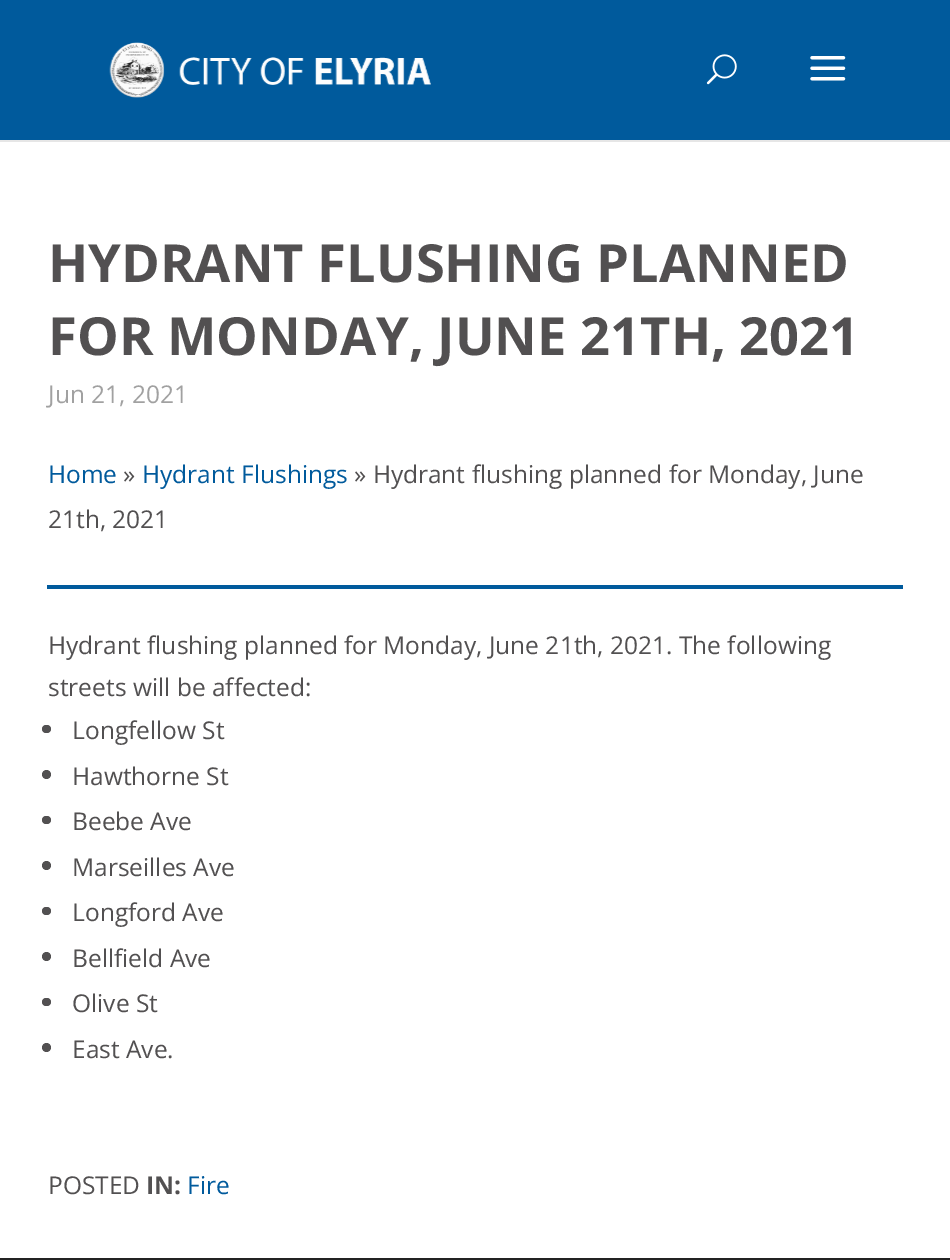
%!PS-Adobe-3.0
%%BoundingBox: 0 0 950 1260
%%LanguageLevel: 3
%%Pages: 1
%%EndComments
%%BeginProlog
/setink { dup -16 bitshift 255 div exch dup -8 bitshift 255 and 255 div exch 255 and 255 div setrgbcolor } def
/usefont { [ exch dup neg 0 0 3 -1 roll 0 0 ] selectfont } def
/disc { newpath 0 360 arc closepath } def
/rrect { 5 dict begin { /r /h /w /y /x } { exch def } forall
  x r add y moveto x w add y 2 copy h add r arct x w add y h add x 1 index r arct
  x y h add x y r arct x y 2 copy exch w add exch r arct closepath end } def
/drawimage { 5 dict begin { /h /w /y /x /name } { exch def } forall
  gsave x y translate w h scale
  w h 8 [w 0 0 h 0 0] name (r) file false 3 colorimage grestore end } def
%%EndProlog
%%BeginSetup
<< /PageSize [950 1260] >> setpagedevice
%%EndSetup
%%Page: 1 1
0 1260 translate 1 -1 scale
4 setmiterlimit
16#FFFFFF setink
0 0 950 1260 rectfill
16#E6E6E6 setink
0 140 950 2 rectfill
16#005A9C setink
0 0 950 140 rectfill
(img1.raw) 109 42 322 56 drawimage
(img2.raw) 706 54 31 31 drawimage
(img3.raw) 810 56 36 25 drawimage
/OpenSans-Bold 52.5 usefont
16#525051 setink
48 282 moveto (HYDRANT FLUSHING PLANNED) show
48 355 moveto (FOR MONDAY, JUNE 21TH, 2021) show
/OpenSans-Regular 24.5 usefont
16#A1A1A1 setink
48 403 moveto (Jun 21, 2021) show
16#005A9C setink
48 483 moveto (Home) show
16#525051 setink
123 483 moveto (») show
16#005A9C setink
142 483 moveto (Hydrant Flushings) show
16#525051 setink
354 483 moveto (» Hydrant flushing planned for Monday, June) show
48 528 moveto (21th, 2021) show
16#005A9C setink
47 585 856 4 rectfill
16#525051 setink
48 654 moveto (Hydrant flushing planned for Monday, June 21th, 2021. The following) show
48 696 moveto (streets will be affected:) show
42 725 9 8 4 rrect fill
72 739 moveto (Longfellow St) show
46.5 774.5 4.5 disc fill
72 785 moveto (Hawthorne St) show
42 816 9 8 4 rrect fill
72 830 moveto (Beebe Ave) show
46.5 865.5 4.5 disc fill
72 876 moveto (Marseilles Ave) show
42 907 9 8 4 rrect fill
72 921 moveto (Longford Ave) show
46.5 956.5 4.5 disc fill
72 967 moveto (Bellfield Ave) show
42 998 9 8 4 rrect fill
72 1012 moveto (Olive St) show
46.5 1047.5 4.5 disc fill
72 1058 moveto (East Ave.) show
48 1194 moveto (POSTED) show
/OpenSans-Bold 24.5 usefont
146 1194 moveto (IN:) show
/OpenSans-Regular 24.5 usefont
16#005A9C setink
187 1194 moveto (Fire) show
16#232323 setink
0 1258 950 2 rectfill
showpage
%%EOF
